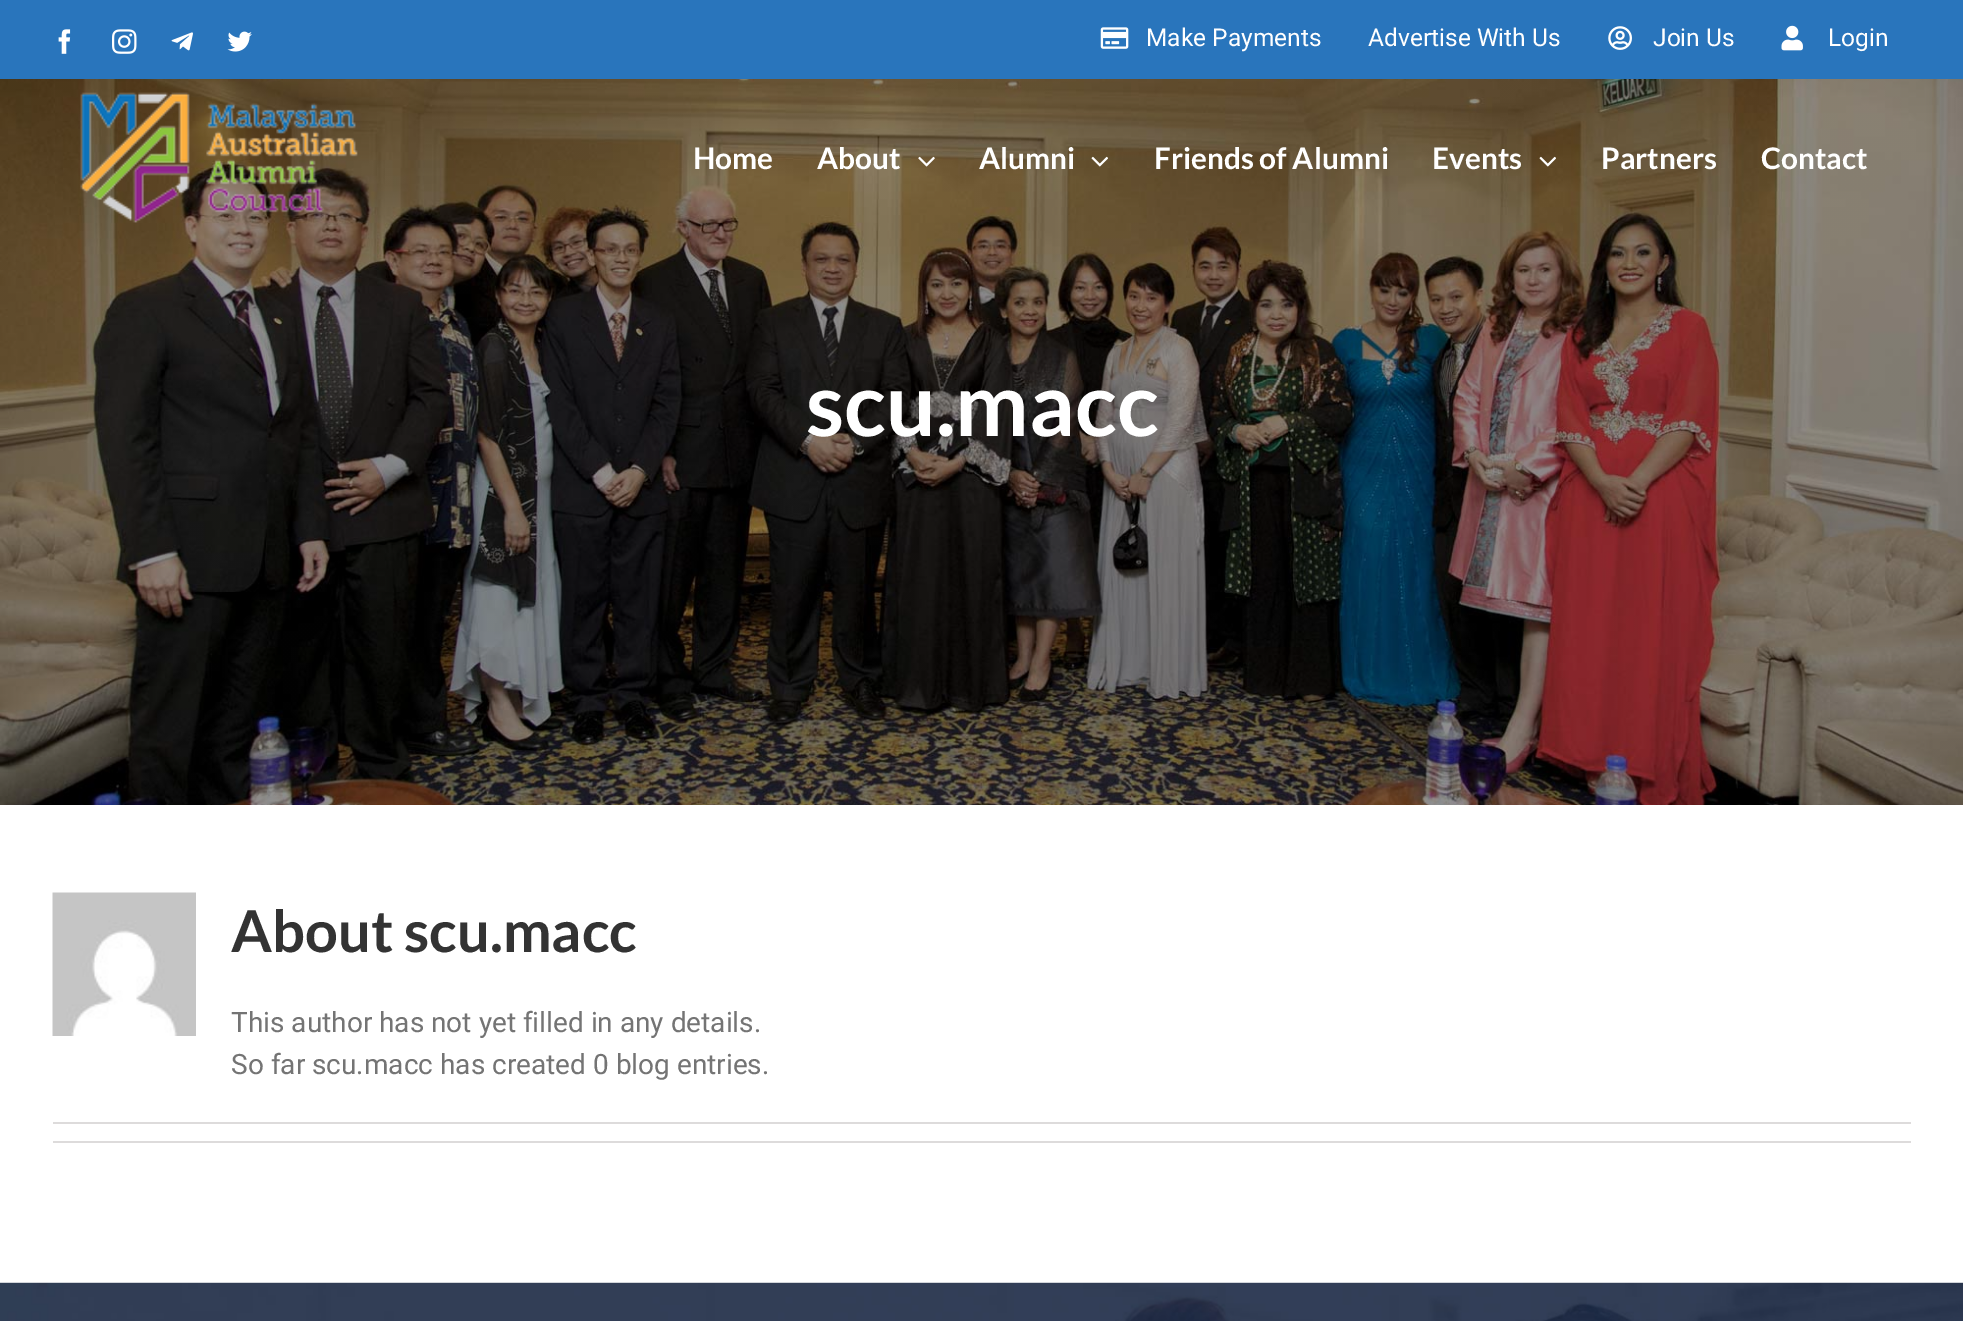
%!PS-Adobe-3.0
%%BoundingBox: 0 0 1963 1321
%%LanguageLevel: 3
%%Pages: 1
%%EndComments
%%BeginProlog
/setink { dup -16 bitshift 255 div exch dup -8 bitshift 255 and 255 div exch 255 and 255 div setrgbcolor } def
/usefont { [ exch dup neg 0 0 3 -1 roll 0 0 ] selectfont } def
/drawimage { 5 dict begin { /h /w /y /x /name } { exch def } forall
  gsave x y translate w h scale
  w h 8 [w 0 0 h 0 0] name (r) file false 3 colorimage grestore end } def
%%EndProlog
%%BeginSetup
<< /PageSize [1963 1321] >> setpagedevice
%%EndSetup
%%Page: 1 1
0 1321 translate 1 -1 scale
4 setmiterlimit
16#FFFFFF setink
0 0 1963 1321 rectfill
16#2975BC setink
0 0 1963 79 rectfill
(img1.raw) 58 29 13 25 drawimage
(img2.raw) 112 29 25 25 drawimage
(img3.raw) 171 32 22 19 drawimage
(img4.raw) 227 31 25 21 drawimage
(img5.raw) 1100 27 29 22 drawimage
/Roboto-Regular 24.5 usefont
16#FFFFFF setink
1146 46 moveto (Make Payments) show
1368 46 moveto (Advertise With Us) show
(img6.raw) 1608 26 24 24 drawimage
1653 46 moveto (Join Us) show
(img7.raw) 1781 25 22 26 drawimage
1828 46 moveto (Login) show
(img12.raw) 0 79 1963 726 drawimage
(img8.raw) 80 92 278 131 drawimage
/Lato-Bold 29.75 usefont
693 169 moveto (Home) show
817 169 moveto (About) show
(img9.raw) 918 156 17 11 drawimage
979 169 moveto (Alumni) show
(img10.raw) 1091 156 17 11 drawimage
1154 169 moveto (Friends of Alumni) show
1432 169 moveto (Events) show
(img11.raw) 1539 156 17 11 drawimage
1601 169 moveto (Partners) show
1761 169 moveto (Contact) show
/Lato-Bold 87.5 usefont
806 436 moveto (scu.macc) show
(img13.raw) 52 892 144 144 drawimage
/Lato-Bold 57.75 usefont
16#333333 setink
231 952 moveto (About scu.macc) show
/Roboto-Regular 28 usefont
16#747474 setink
231 1032 moveto (This author has not yet filled in any details.) show
231 1074 moveto (So far scu.macc has created 0 blog entries.) show
16#DDDBDB setink
53 1122 1858 2 rectfill
53 1141 1858 2 rectfill
(img14.raw) 0 1282 1963 39 drawimage
showpage
%%EOF
